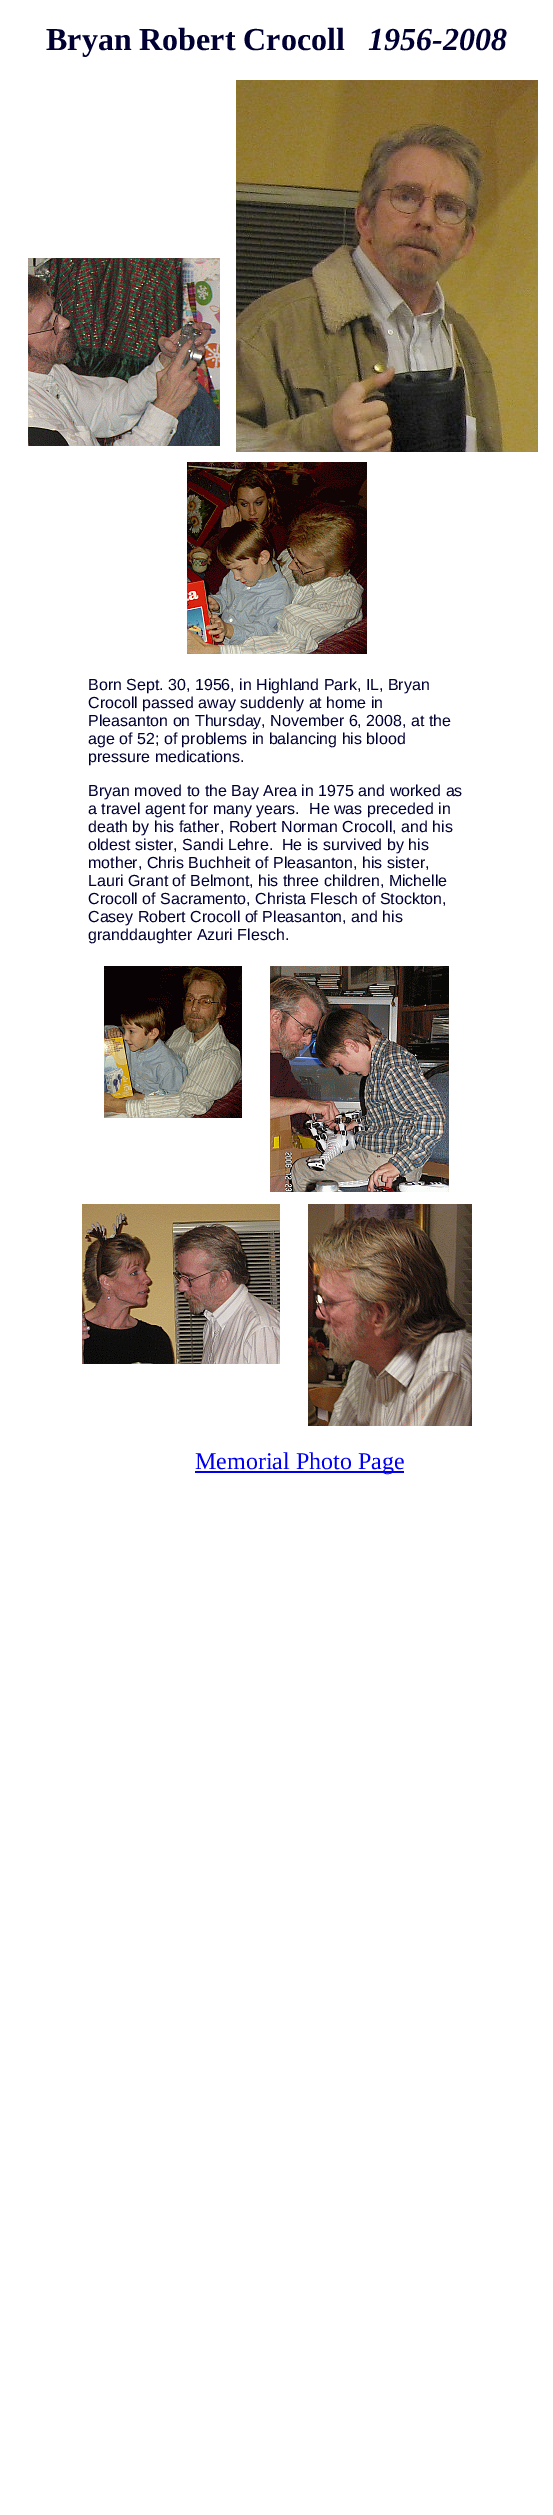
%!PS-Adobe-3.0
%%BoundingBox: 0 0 553 2515
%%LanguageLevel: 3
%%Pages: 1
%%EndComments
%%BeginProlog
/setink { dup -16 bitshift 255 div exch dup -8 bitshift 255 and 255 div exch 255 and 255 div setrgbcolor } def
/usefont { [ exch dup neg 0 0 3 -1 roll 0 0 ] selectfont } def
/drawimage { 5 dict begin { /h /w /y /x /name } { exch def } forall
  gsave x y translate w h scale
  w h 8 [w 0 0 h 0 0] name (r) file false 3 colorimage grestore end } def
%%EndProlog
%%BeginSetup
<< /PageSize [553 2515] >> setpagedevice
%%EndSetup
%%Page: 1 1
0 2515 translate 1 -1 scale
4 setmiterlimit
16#FFFFFF setink
0 0 553 2515 rectfill
/LiberationSerif-Bold 32 usefont
16#000033 setink
46 50 moveto (Bryan Robert Crocoll) show
/LiberationSerif-BoldItalic 32 usefont
368 50 moveto (1956-2008) show
(img1.raw) 28 258 192 188 drawimage
(img2.raw) 236 80 302 372 drawimage
(img3.raw) 187 462 180 192 drawimage
/LiberationSans-Regular 16 usefont
[
    [(Born Sept. 30, 1956, in Highland Park, IL, Bryan) 88 690]
    [(Crocoll passed away suddenly at home in) 88 708]
    [(Pleasanton on Thursday, November 6, 2008, at the) 88 726]
    [(age of 52; of problems in balancing his blood) 88 744]
    [(pressure medications.) 88 762]
    [(Bryan moved to the Bay Area in 1975 and worked as) 88 796]
    [(a travel agent for many years.) 88 814]
    [(He was preceded in) 309 814]
    [(death by his father, Robert Norman Crocoll, and his) 88 832]
    [(oldest sister, Sandi Lehre.  He is survived by his) 88 850]
    [(mother, Chris Buchheit of Pleasanton, his sister,) 88 868]
    [(Lauri Grant of Belmont, his three children, Michelle) 88 886]
    [(Crocoll of Sacramento, Christa Flesch of Stockton,) 88 904]
    [(Casey Robert Crocoll of Pleasanton, and his) 88 922]
    [(granddaughter Azuri Flesch.) 88 940]
] { aload pop moveto show } forall
(img4.raw) 104 966 138 152 drawimage
(img5.raw) 270 966 179 226 drawimage
(img6.raw) 82 1204 198 160 drawimage
(img7.raw) 308 1204 164 222 drawimage
16#0000EE setink
195 1471 209 2 rectfill
/LiberationSerif-Regular 24 usefont
195 1469 moveto (Memorial Photo Page) show
showpage
%%EOF
